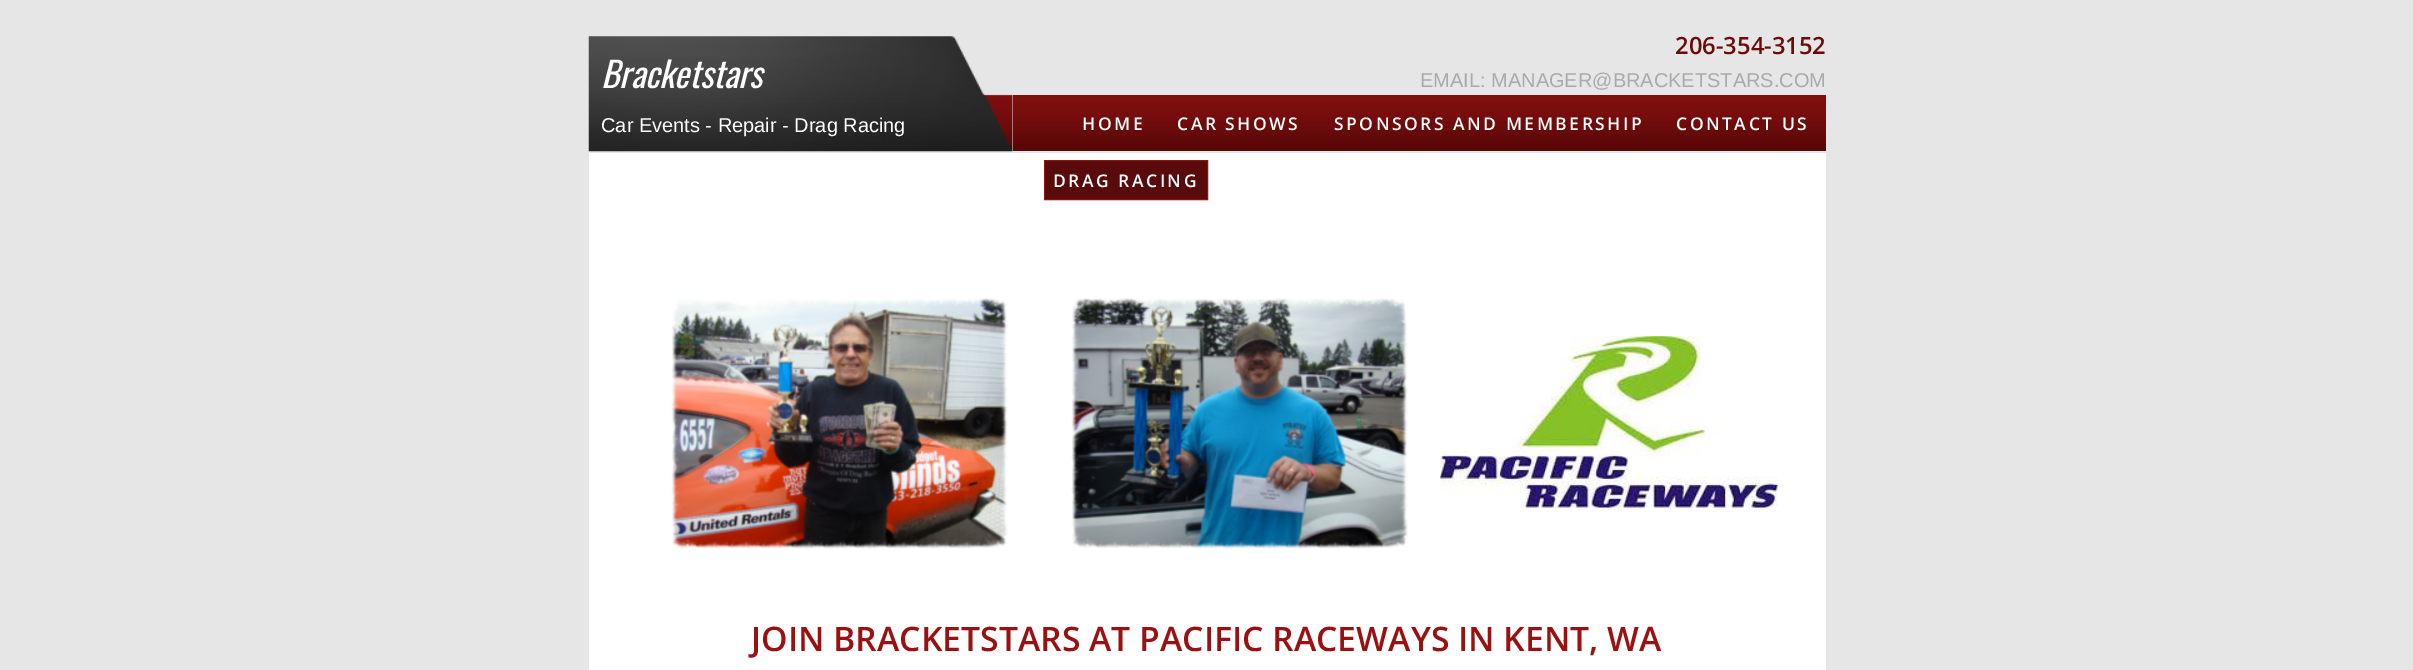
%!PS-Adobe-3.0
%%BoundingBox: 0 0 2413 670
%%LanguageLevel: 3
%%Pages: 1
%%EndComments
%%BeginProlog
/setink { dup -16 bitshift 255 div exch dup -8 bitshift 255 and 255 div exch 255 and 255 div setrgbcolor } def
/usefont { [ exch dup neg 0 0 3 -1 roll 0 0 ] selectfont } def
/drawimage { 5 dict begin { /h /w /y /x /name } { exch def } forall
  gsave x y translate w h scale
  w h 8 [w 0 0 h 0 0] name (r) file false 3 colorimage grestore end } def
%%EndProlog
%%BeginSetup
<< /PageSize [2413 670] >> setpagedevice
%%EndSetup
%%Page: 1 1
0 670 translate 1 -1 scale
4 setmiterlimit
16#E6E6E6 setink
0 0 2413 670 rectfill
16#FFFFFF setink
589 153 1237 517 rectfill
(img1.raw) 588 36 425 116 drawimage
/OpenSans-SemiBold 23.75 usefont
16#6D0B0B setink
1675 54 moveto (206-354-3152) show
/LiberationSans-Regular 20 usefont
16#AAAAAA setink
1420 87 moveto (EMAIL: MANAGER@BRACKETSTARS.COM) show
/Oswald-Italic 35 usefont
16#FFFFFF setink
601 88 moveto (Bracketstars) show
/LiberationSans-Regular 20 usefont
601 132 moveto (Car Events - Repair - Drag Racing) show
(img2.raw) 1013 95 813 56 drawimage
/OpenSans-SemiBold 17.5 usefont
1082 130 moveto 2.5 0 (HOME) ashow
1177 130 moveto 2.5 0 (CAR SHOWS) ashow
1334 130 moveto 2.5 0 (SPONSORS AND MEMBERSHIP) ashow
1676 130 moveto 2.5 0 (CONTACT US) ashow
16#590A0A setink
1044.5 160.5 moveto 1207.5 160.5 lineto 1207.5 199.5 lineto 1044.5 199.5 lineto closepath gsave fill grestore
16#931010 setink
stroke
16#FFFFFF setink
1053 187 moveto 2.5 0 (DRAG RACING) ashow
(img3.raw) 671 298 337 251 drawimage
(img4.raw) 1071 298 337 251 drawimage
(img5.raw) 1440 336 338 172 drawimage
/OpenSans-SemiBold 33.75 usefont
16#991111 setink
751 651 moveto (JOIN BRACKETSTARS AT PACIFIC RACEWAYS IN KENT, WA) show
showpage
%%EOF
